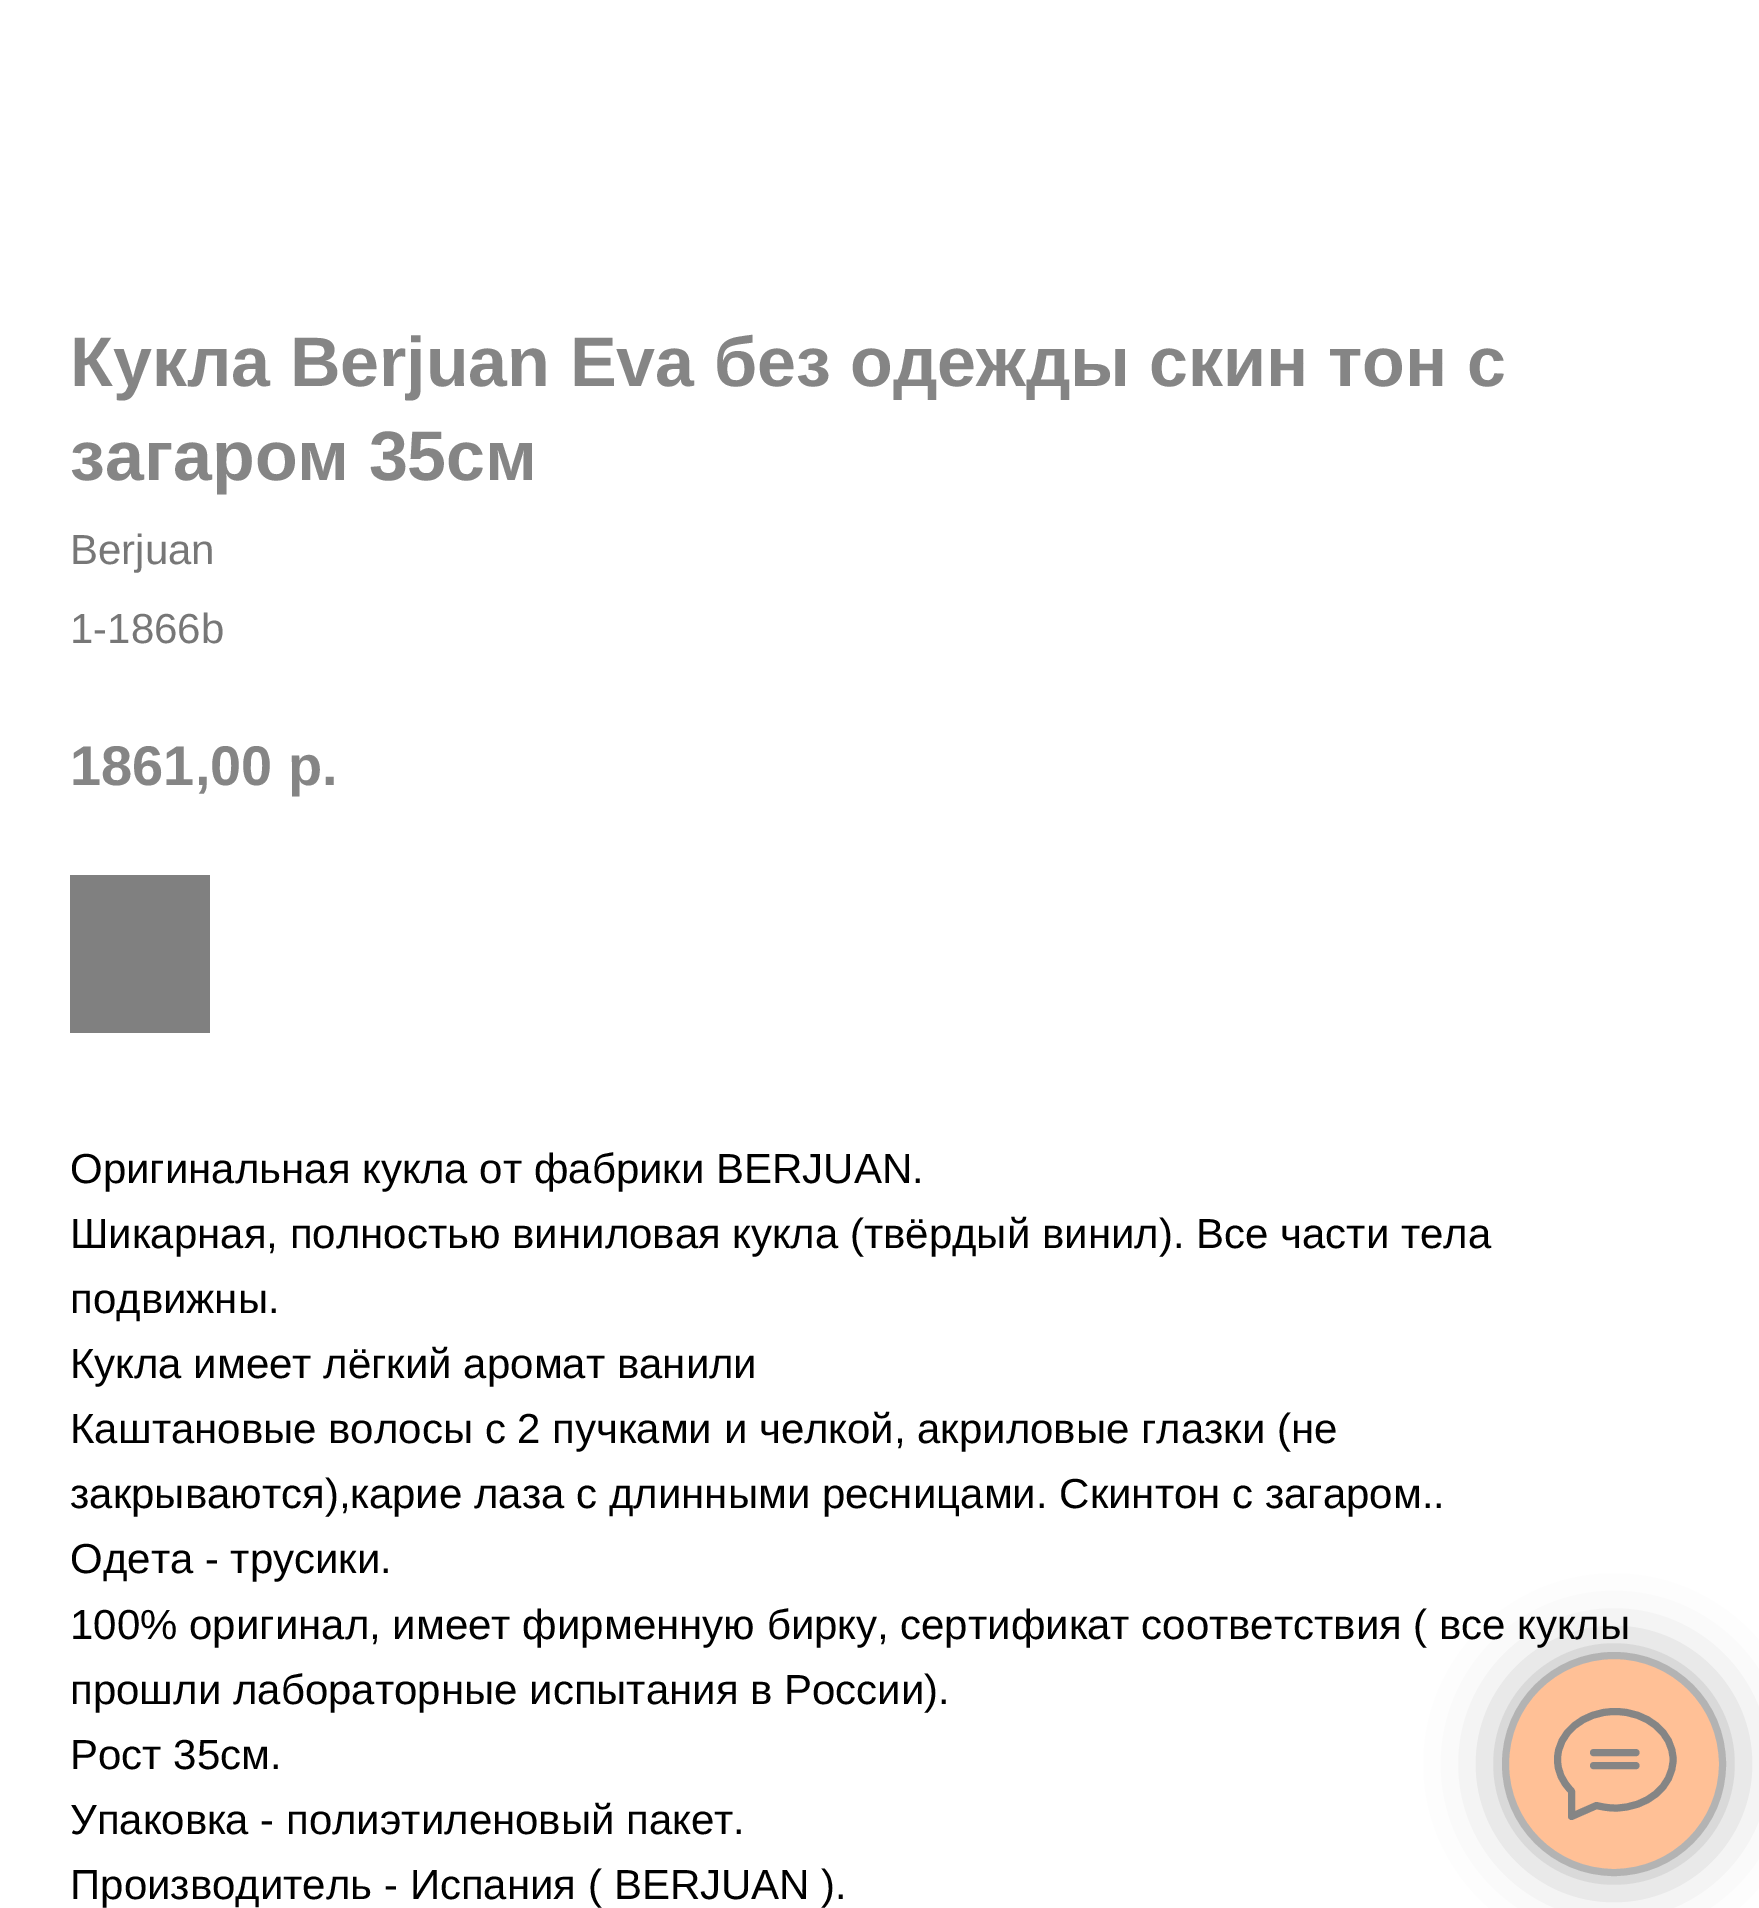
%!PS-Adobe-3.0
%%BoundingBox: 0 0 1759 1908
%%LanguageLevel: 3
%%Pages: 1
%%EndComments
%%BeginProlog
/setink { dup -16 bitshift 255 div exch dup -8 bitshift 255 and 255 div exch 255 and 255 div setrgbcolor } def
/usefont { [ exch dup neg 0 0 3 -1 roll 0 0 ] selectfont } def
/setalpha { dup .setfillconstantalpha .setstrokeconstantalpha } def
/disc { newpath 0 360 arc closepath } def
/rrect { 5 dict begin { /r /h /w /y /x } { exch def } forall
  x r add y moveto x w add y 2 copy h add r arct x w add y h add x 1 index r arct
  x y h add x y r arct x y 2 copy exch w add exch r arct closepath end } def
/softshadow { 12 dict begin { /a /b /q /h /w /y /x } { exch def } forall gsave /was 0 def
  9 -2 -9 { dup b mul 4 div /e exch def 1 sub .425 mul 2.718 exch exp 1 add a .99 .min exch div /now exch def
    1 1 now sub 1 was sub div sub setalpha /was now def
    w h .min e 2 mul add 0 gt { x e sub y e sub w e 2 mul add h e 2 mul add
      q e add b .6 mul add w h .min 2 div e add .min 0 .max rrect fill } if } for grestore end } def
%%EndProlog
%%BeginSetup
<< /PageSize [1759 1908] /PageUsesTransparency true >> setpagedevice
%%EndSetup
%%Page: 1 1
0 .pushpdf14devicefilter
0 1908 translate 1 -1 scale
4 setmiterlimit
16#FFFFFF setink
0 0 1759 1908 rectfill
/LiberationSans-Bold 70 usefont
16#858585 setink
70 386 moveto (Кукла Berjuan Eva без одежды скин тон с) show
70 480 moveto (загаром 35см) show
/LiberationSans-Regular 42 usefont
16#777777 setink
70 564 moveto (Berjuan) show
70 643 moveto (1-1866b) show
/LiberationSans-Bold 56 usefont
16#858585 setink
70 785 moveto (1861,00 р.) show
16#808080 setink
70 875 140 158 rectfill
/LiberationSans-Regular 42 usefont
16#000000 setink
[
    [(Оригинальная кукла от фабрики BERJUAN.) 70 1183]
    [(Шикарная, полностью виниловая кукла \(твёрдый винил\). Все части тела) 70 1248]
    [(подвижны.) 70 1313]
    [(Кукла имеет лёгкий аромат ванили) 70 1378]
    [(Каштановые волосы с 2 пучками и челкой, акриловые глазки \(не) 70 1443]
    [(закрываются\),карие лаза с длинными ресницами. Скинтон с загаром..) 70 1508]
    [(Одета - трусики.) 70 1573]
    [(100% оригинал, имеет фирменную бирку, сертификат соответствия \( все куклы) 70 1639]
    [(прошли лабораторные испытания в России\).) 70 1704]
    [(Рост 35см.) 70 1769]
    [(Упаковка - полиэтиленовый пакет.) 70 1834]
    [(Производитель - Испания \( BERJUAN \).) 70 1899]
] { aload pop moveto show } forall
1502 1652 224 224 112 35 0.3 softshadow
16#FFC096 setink
1614 1764 108.5 disc gsave fill grestore
16#B3B3B3 setink
7 setlinewidth
stroke
16#858585 setink
1 setlinecap
1 setlinejoin
1593.5 1752.5 moveto 1636 1752.5 lineto 1593.5 1765.5 moveto 1636 1765.5 lineto 1571 1790.5 moveto 1562.5 1782 1557.5 1771.5 1557.5 1759.5 curveto 1557.5 1733 1583.5 1711.5 1615 1711.5 curveto 1647 1711.5 1673 1733 1673 1759.5 curveto 1673 1786.5 1647 1808 1615 1808 curveto 1608.5 1808 1602.5 1807 1596.5 1805.5 curveto 1571.5 1816.5 lineto 1571.5 1791.5 lineto closepath stroke
.poppdf14devicefilter showpage
%%EOF
